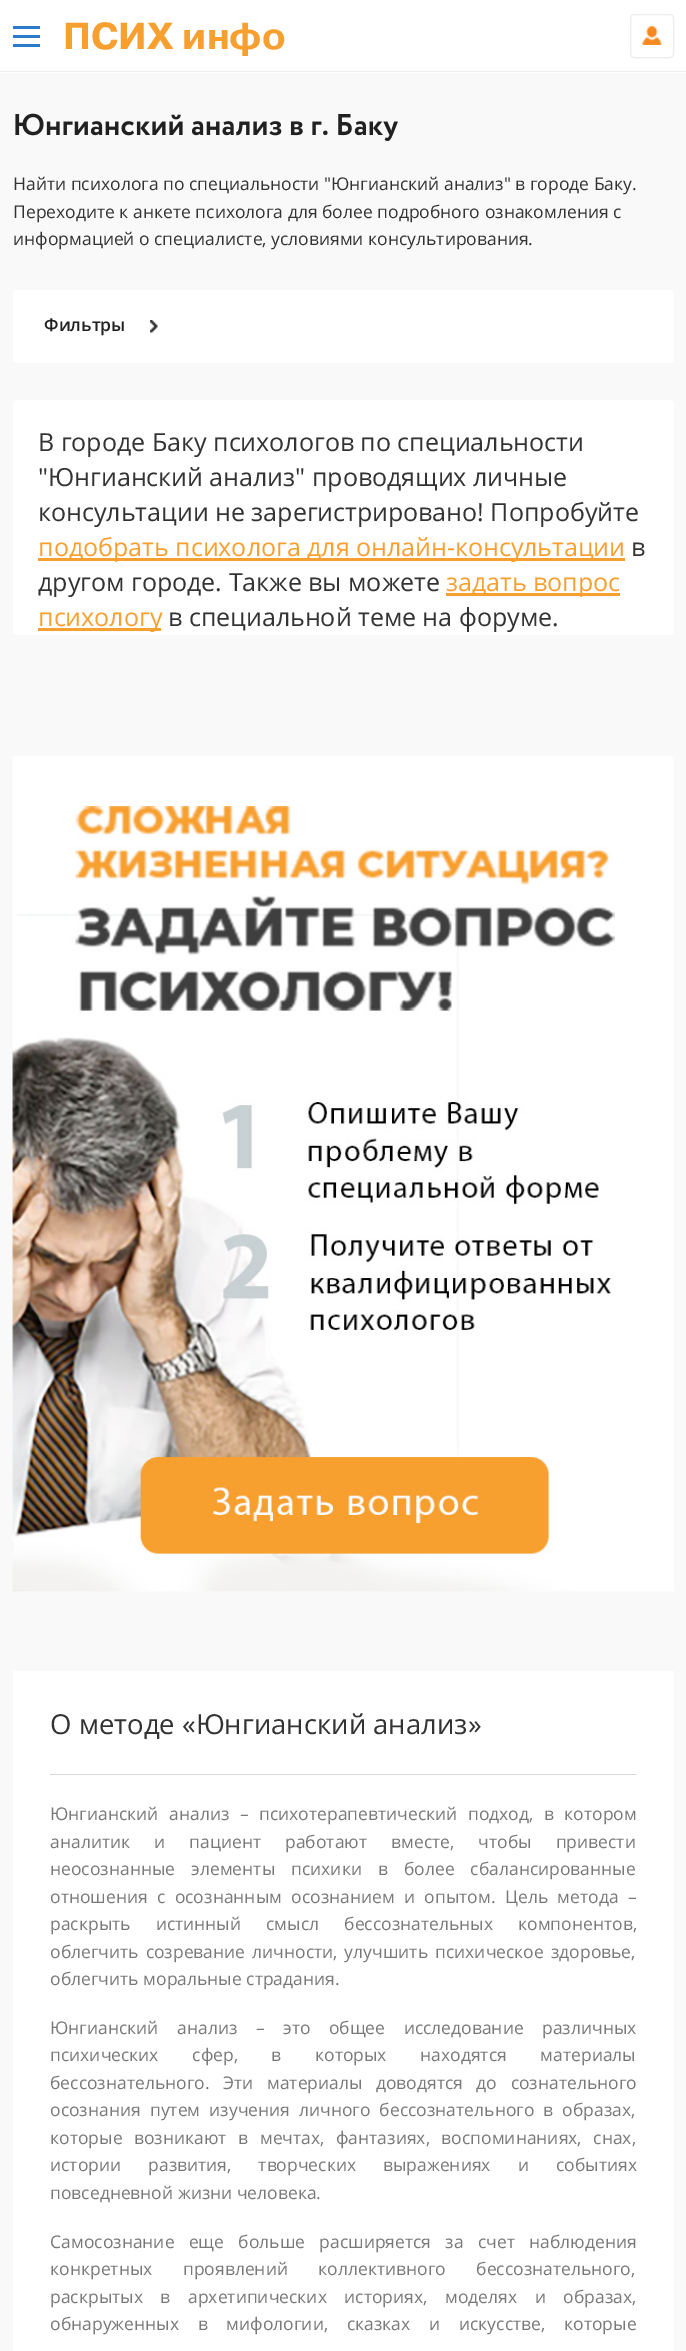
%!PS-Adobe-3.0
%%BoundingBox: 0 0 686 2351
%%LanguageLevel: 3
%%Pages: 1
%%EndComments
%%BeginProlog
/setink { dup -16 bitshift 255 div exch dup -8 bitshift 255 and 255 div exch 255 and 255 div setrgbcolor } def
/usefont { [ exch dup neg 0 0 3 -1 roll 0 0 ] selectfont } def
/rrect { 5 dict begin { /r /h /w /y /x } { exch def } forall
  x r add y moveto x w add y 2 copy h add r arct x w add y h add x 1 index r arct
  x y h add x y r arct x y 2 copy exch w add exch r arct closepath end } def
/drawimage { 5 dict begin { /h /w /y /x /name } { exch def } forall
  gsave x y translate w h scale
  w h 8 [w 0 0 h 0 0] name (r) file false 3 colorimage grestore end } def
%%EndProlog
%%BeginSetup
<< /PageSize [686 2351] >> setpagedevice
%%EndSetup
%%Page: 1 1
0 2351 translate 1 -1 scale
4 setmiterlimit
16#F9F9FA setink
0 0 686 2351 rectfill
[
    [0 0 686 73 16#FFFFFF]
    [0 71 686 1 16#ECECEC]
    [13 35 27 3 16#2C7BCA]
    [13 26 27 3 16#2C7BCA]
    [13 44 27 3 16#2C7BCA]
] { aload pop setink rectfill } forall
/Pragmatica-Bold 37.5 usefont
16#F7A02F setink
63 49 moveto (ПСИХ инфо) show
(img1.raw) 642 26 20 19 drawimage
16#ECECEC setink
630.5 14.5 43 43 3.5 rrect stroke
(img2.raw) 15 113 383 28 drawimage
/OpenSans-Regular 17.5 usefont
16#333333 setink
[
    [(Найти психолога по специальности "Юнгианский анализ" в городе Баку.) 13 190]
    [(Переходите к анкете психолога для более подробного ознакомления с) 13 218]
    [(информацией о специалисте, условиями консультирования.) 13 245]
] { aload pop moveto show } forall
16#FFFFFF setink
13 290 661 73 4 rrect fill
/OpenSans-SemiBold 17.5 usefont
16#212121 setink
44 331 moveto (Фильтры) show
(img3.raw) 150 320 8 13 drawimage
16#FFFFFF setink
13 400 661 235 4 rrect fill
/OpenSans-Regular 25 usefont
16#333333 setink
[
    [(В городе Баку психологов по специальности) 38 451]
    [("Юнгианский анализ" проводящих личные) 38 486]
    [(консультации не зарегистрировано! Попробуйте) 38 521]
] { aload pop moveto show } forall
16#F7A02F setink
38 558 587 3 rectfill
38 556 moveto (подобрать психолога для онлайн-консультации) show
16#333333 setink
631 556 moveto (в) show
38 591 moveto (другом городе. Также вы можете) show
16#F7A02F setink
446 593 174 3 rectfill
446 591 moveto (задать вопрос) show
38 628 123 3 rectfill
38 626 moveto (психологу) show
16#333333 setink
168 626 moveto (в специальной теме на форуме.) show
(img4.raw) 12 756 662 836 drawimage
16#FFFFFF setink
13 1671 661 680 rectfill
16#D8D8D8 setink
50 1774 586 1 rectfill
/OpenSans-Regular 27.5 usefont
16#333333 setink
50 1734 moveto (О методе «Юнгианский анализ») show
/OpenSans-Regular 17.5 usefont
16#797979 setink
50 1820 moveto 6 0 32 (Юнгианский анализ – психотерапевтический подход, в котором) widthshow
50 1848 moveto 19.5 0 32 (аналитик и пациент работают вместе, чтобы привести) widthshow
50 1875 moveto 11.5 0 32 (неосознанные элементы психики в более сбалансированные) widthshow
50 1903 moveto 4.75 0 32 (отношения с осознанным осознанием и опытом. Цель метода –) widthshow
50 1930 moveto 20.5 0 32 (раскрыть истинный смысл бессознательных компонентов,) widthshow
50 1958 moveto 2.5 0 32 (облегчить созревание личности, улучшить психическое здоровье,) widthshow
50 1985 moveto (облегчить моральные страдания.) show
50 2034 moveto 14 0 32 (Юнгианский анализ – это общее исследование различных) widthshow
50 2061 moveto 29 0 32 (психических сфер, в которых находятся материалы) widthshow
50 2089 moveto 9 0 32 (бессознательного. Эти материалы доводятся до сознательного) widthshow
50 2116 moveto 4.5 0 32 (осознания путем изучения личного бессознательного в образах,) widthshow
50 2144 moveto 7 0 32 (которые возникают в мечтах, фантазиях, воспоминаниях, снах,) widthshow
50 2171 moveto 22.5 0 32 (истории развития, творческих выражениях и событиях) widthshow
50 2199 moveto (повседневной жизни человека.) show
50 2248 moveto 9.75 0 32 (Самосознание еще больше расширяется за счет наблюдения) widthshow
50 2275 moveto 26 0 32 (конкретных проявлений коллективного бессознательного,) widthshow
50 2303 moveto 13 0 32 (раскрытых в архетипических историях, моделях и образах,) widthshow
50 2330 moveto 14.25 0 32 (обнаруженных в мифологии, сказках и искусстве, которые) widthshow
showpage
%%EOF
